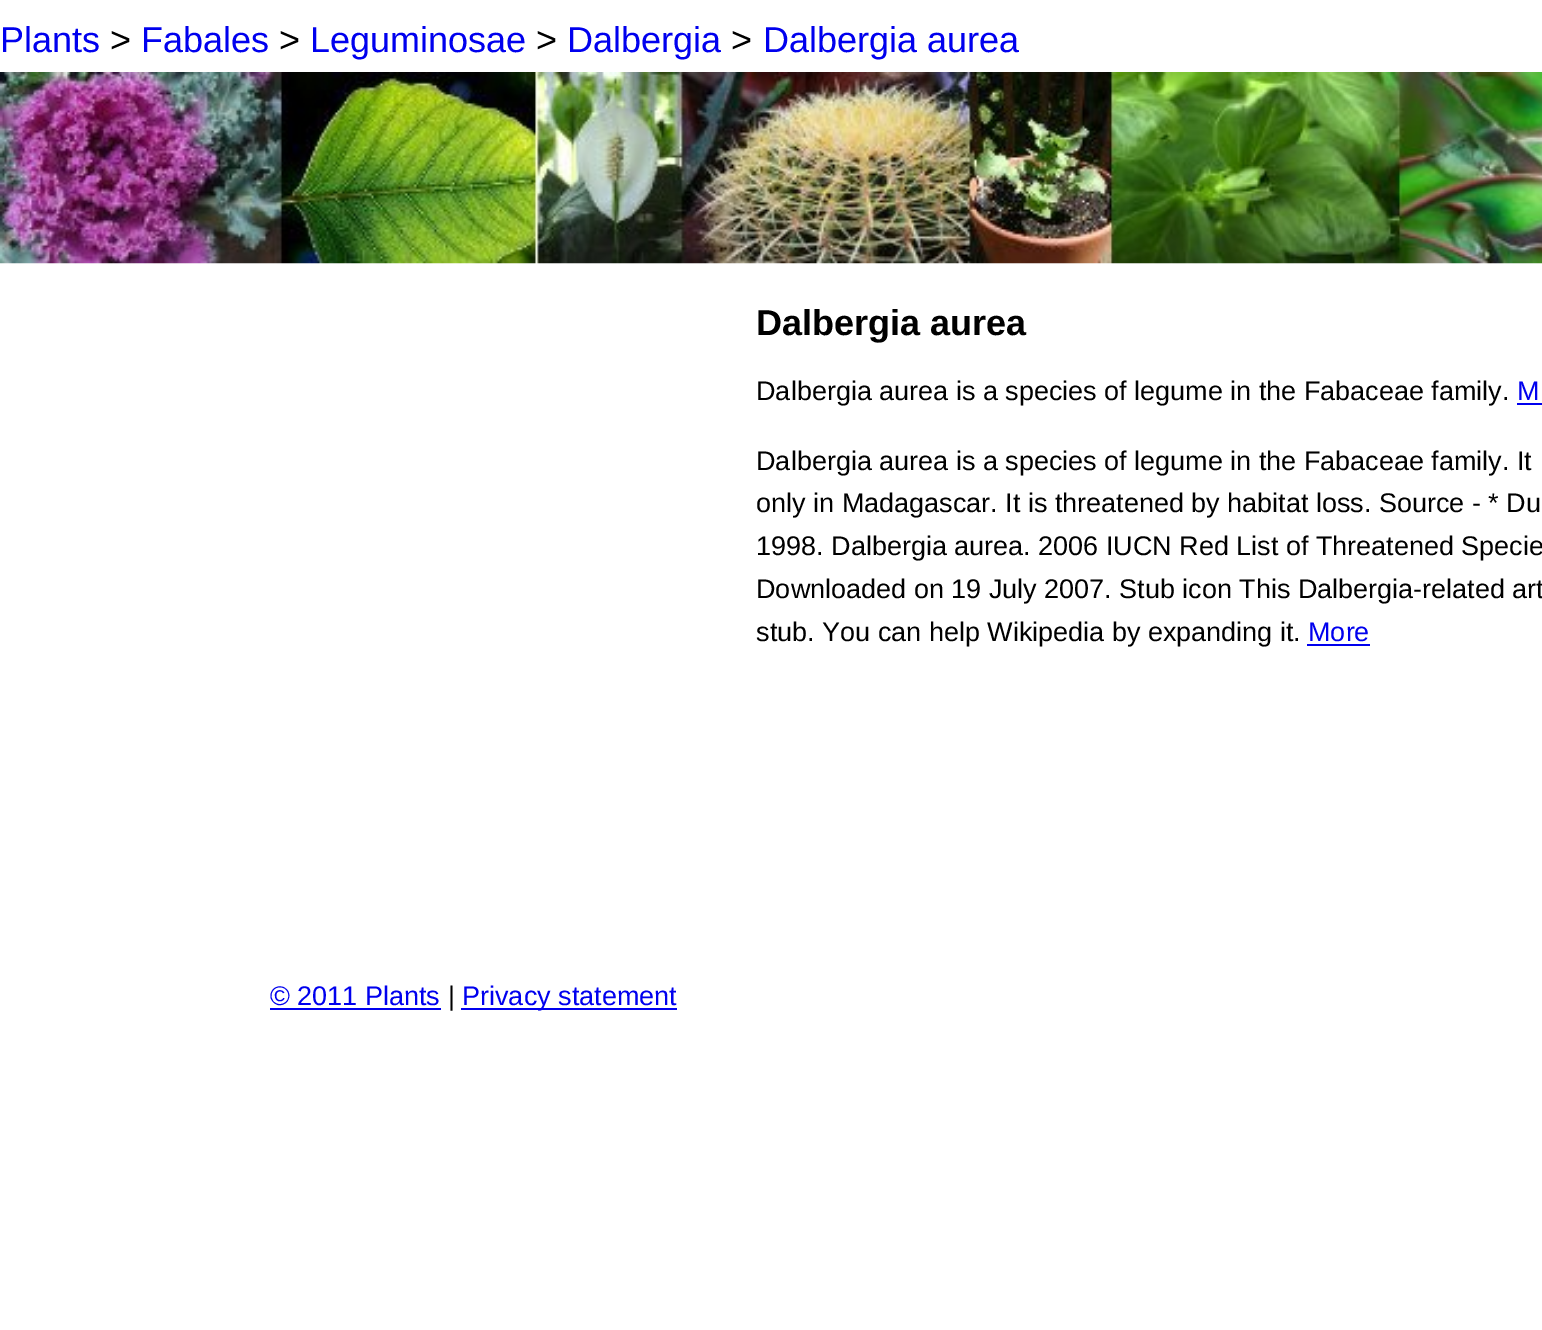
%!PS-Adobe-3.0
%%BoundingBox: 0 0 1542 1330
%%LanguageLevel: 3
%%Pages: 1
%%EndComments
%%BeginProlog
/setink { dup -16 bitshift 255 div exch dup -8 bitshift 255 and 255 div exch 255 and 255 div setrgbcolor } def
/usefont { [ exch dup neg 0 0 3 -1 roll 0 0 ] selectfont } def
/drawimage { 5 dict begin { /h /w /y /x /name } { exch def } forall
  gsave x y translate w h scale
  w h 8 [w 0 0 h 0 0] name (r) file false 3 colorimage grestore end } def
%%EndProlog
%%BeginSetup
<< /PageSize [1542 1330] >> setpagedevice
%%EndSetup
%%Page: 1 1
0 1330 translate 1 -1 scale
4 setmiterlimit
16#FFFFFF setink
0 0 1542 1330 rectfill
/LiberationSans-Regular 36 usefont
16#0000EE setink
0 52 moveto (Plants) show
16#000000 setink
110 52 moveto (>) show
16#0000EE setink
141 52 moveto (Fabales) show
16#000000 setink
279 52 moveto (>) show
16#0000EE setink
310 52 moveto (Leguminosae) show
16#000000 setink
536 52 moveto (>) show
16#0000EE setink
567 52 moveto (Dalbergia) show
16#000000 setink
731 52 moveto (>) show
16#0000EE setink
763 52 moveto (Dalbergia aurea) show
(img1.raw) 0 72 1542 192 drawimage
/LiberationSans-Bold 36 usefont
16#000000 setink
756 335 moveto (Dalbergia aurea) show
/LiberationSans-Regular 27 usefont
756 400 moveto (Dalbergia aurea is a species of legume in the Fabaceae family.) show
16#0000EE setink
1517 400 moveto (M) show
1517 403 25 2 rectfill
16#000000 setink
[
    [(Dalbergia aurea is a species of legume in the Fabaceae family. It) 756 470]
    [(only in Madagascar. It is threatened by habitat loss. Source - * Du) 756 512]
    [(1998. Dalbergia aurea. 2006 IUCN Red List of Threatened Specie) 756 555]
    [(Downloaded on 19 July 2007. Stub icon This Dalbergia-related art) 756 598]
    [(stub. You can help Wikipedia by expanding it.) 756 641]
] { aload pop moveto show } forall
16#0000EE setink
1308 641 moveto (More) show
1307 644 63 2 rectfill
270 1005 moveto (© 2011 Plants) show
270 1008 171 2 rectfill
16#000000 setink
448 1005 moveto (|) show
16#0000EE setink
461 1008 216 2 rectfill
462 1005 moveto (Privacy statement) show
showpage
%%EOF
